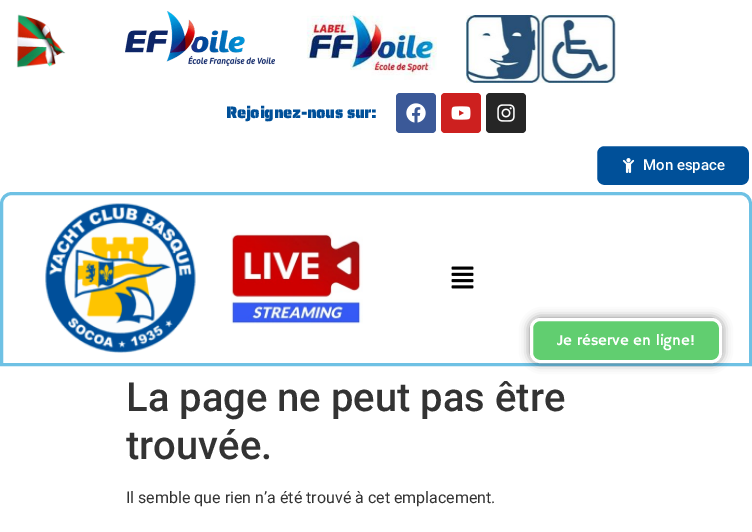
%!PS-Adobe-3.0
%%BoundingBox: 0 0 752 532
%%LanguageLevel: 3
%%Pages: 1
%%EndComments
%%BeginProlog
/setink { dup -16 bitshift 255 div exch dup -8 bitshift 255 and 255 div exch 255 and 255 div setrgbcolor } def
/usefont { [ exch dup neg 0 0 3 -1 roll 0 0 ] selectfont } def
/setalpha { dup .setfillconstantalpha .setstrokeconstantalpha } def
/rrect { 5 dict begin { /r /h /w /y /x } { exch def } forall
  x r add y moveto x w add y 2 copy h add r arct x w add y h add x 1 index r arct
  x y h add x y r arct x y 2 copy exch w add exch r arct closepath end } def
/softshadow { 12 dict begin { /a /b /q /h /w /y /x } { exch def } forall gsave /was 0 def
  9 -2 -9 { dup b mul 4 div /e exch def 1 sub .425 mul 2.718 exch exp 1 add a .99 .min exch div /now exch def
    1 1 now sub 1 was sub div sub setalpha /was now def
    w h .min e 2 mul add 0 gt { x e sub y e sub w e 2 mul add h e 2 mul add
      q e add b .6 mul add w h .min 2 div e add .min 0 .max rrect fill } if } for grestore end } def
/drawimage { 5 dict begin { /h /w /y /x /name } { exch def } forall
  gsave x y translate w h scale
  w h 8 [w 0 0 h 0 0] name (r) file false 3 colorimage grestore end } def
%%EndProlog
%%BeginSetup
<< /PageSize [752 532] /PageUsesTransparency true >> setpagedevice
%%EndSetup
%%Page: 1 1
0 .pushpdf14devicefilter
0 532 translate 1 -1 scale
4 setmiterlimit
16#FFFFFF setink
0 0 752 532 rectfill
(img1.raw) 16 14 50 54 drawimage
(img2.raw) 125 11 150 55 drawimage
(img3.raw) 306 11 131 69 drawimage
(img4.raw) 466 15 150 68 drawimage
/SairaStencilOne-Bold 16 usefont
16#005099 setink
226 118 moveto (Rejoignez-nous sur:) show
16#3B5998 setink
396 93 40 40 4 rrect fill
(img5.raw) 406 103 20 20 drawimage
16#CD201F setink
441 93 40 40 4 rrect fill
(img6.raw) 451 106 20 14 drawimage
16#262626 setink
486 93 40 40 4 rrect fill
(img7.raw) 497 104 18 18 drawimage
16#005099 setink
595.5 144.5 155 42 8.5 rrect gsave fill grestore
16#FFFFFF setink
3 setlinewidth
stroke
(img8.raw) 622 158 13 15 drawimage
/Roboto-Medium 15 usefont
643 170 moveto (Mon espace) show
16#6EC1E4 setink
12 193.5 moveto 740 193.5 lineto 746 193.5 750.5 198 750.5 204 curveto 750.5 364.5 lineto 1.5 364.5 lineto 1.5 204 lineto 1.5 198 6 193.5 12 193.5 curveto closepath stroke
(img9.raw) 45 203 151 150 drawimage
(img10.raw) 231 232 132 92 drawimage
(img11.raw) 451 266 23 23 drawimage
16#000000 setink
530 318 192 45 10 5 0.5 softshadow
16#61CE70 setink
531.5 319.5 189 42 8.5 rrect gsave fill grestore
16#FFFFFF setink
stroke
/HammersmithOne-Regular 15 usefont
557 345 moveto (Je réserve en ligne!) show
/Roboto-Medium 40 usefont
16#333333 setink
126 411 moveto (La page ne peut pas être) show
126 459 moveto (trouvée.) show
/Roboto-Regular 16 usefont
126 503 moveto (Il semble que rien n’a été trouvé à cet emplacement.) show
.poppdf14devicefilter showpage
%%EOF
